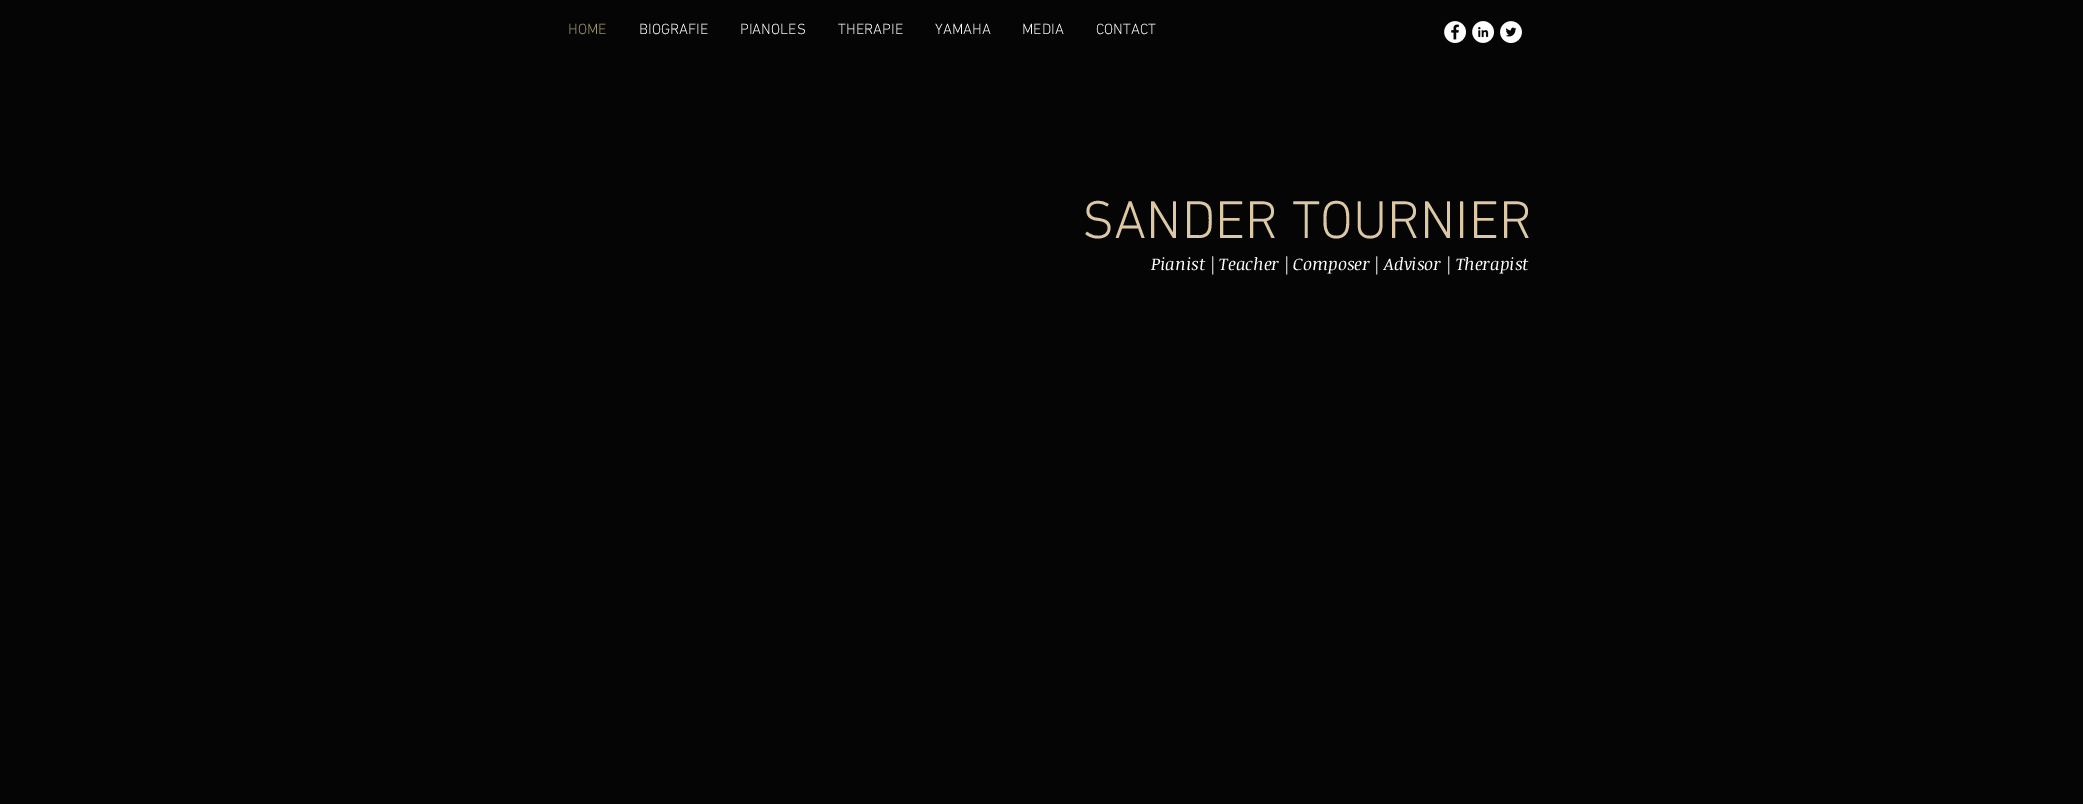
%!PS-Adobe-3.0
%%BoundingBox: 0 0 2083 804
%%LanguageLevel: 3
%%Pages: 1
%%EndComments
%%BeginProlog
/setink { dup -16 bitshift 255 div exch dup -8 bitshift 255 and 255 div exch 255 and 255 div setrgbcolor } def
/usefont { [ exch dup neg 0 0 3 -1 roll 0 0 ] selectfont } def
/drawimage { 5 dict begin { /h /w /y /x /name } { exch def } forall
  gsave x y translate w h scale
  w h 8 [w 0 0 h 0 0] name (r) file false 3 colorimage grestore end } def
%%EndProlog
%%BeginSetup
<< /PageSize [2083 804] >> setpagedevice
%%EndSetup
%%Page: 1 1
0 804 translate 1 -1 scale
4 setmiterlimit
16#050505 setink
0 0 2083 804 rectfill
/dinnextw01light-Light 15 usefont
16#A3956D setink
568 34 moveto (HOME) show
16#FFFFFF setink
[
    [(BIOGRAFIE) 639 34]
    [(PIANOLES) 740 34]
    [(THERAPIE) 838 34]
    [(YAMAHA) 935 34]
    [(MEDIA) 1022 34]
    [(CONTACT) 1096 34]
] { aload pop moveto show } forall
(img1.raw) 1444 21 22 22 drawimage
(img2.raw) 1472 21 22 22 drawimage
(img3.raw) 1500 21 22 22 drawimage
/dinnextw01light-Light 54 usefont
16#DCC8A4 setink
1082 238 moveto (SANDER TOURNIER) show
/NoticiaText-Italic 17 usefont
16#FFFFFF setink
1151 270 moveto (Pianist | Teacher | Composer | Advisor | Therapist) show
showpage
%%EOF
